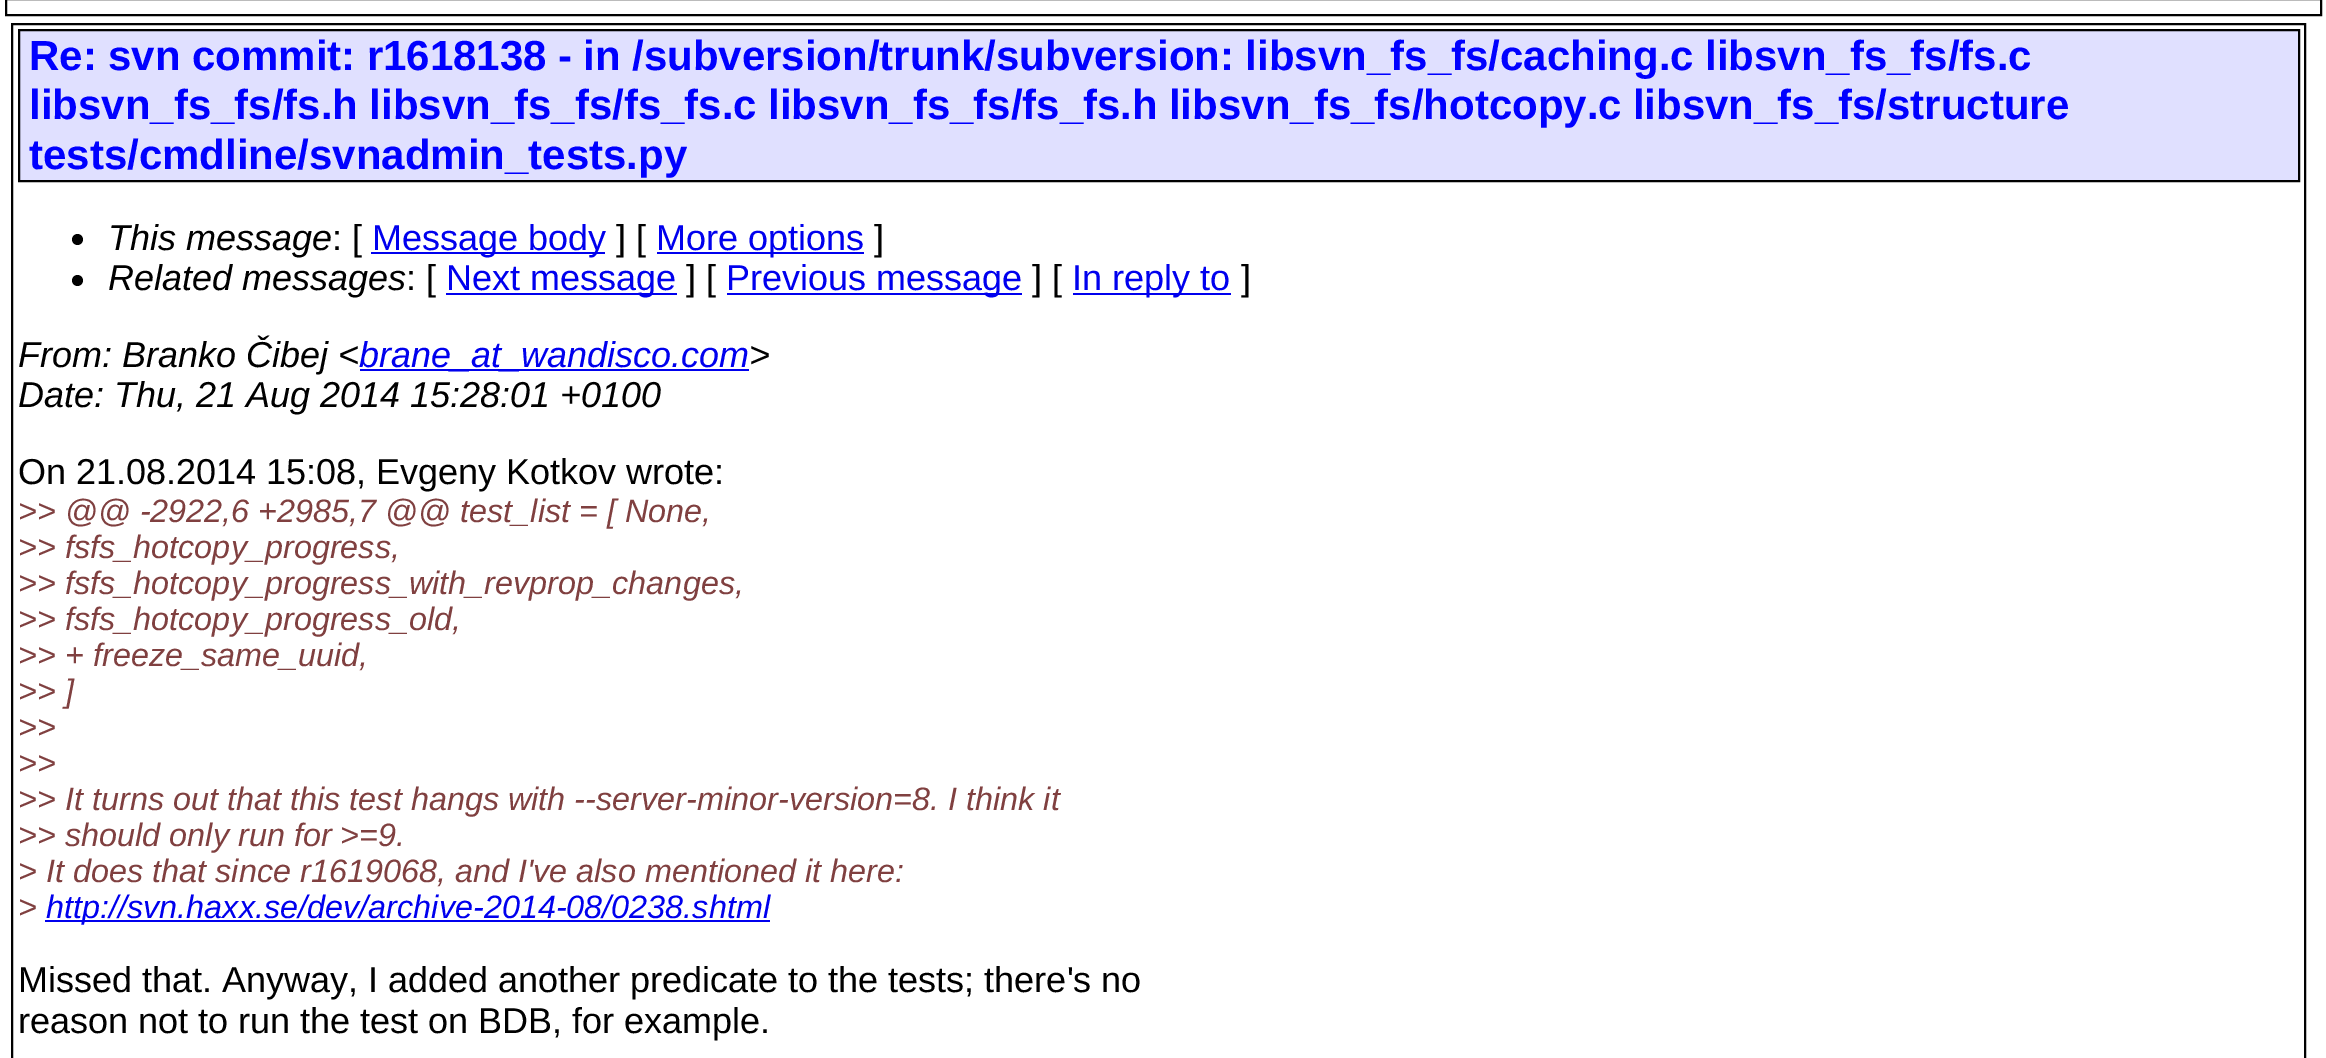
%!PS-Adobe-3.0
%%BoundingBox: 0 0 2326 1058
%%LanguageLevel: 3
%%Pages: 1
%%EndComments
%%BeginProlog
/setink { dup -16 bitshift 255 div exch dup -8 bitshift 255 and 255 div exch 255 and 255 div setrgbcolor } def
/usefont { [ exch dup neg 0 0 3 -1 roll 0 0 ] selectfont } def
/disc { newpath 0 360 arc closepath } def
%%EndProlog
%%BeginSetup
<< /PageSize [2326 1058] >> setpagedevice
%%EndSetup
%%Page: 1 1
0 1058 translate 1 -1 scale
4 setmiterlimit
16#FFFFFF setink
0 0 2326 1058 rectfill
16#000000 setink
2 setlinewidth
6 -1 2315 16 rectstroke
12 24 2293 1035 rectstroke
16#E0E0FF setink
19 30 moveto 2299 30 lineto 2299 181 lineto 19 181 lineto closepath gsave fill grestore
16#000000 setink
stroke
/LiberationSans-Bold 42 usefont
16#0000FF setink
29 70 moveto -0.25 0 32 (Re: svn commit: r1618138 - in /subversion/trunk/subversion: libsvn_fs_fs/caching.c libsvn_fs_fs/fs.c) widthshow
29 119 moveto -0.5 0 32 (libsvn_fs_fs/fs.h libsvn_fs_fs/fs_fs.c libsvn_fs_fs/fs_fs.h libsvn_fs_fs/hotcopy.c libsvn_fs_fs/structure) widthshow
29 169 moveto (tests/cmdline/svnadmin_tests.py) show
16#000000 setink
77.5 239.5 5.5 disc fill
/LiberationSans-Italic 36 usefont
108 250 moveto (This message) show
/LiberationSans-Regular 36 usefont
332 250 moveto (: [) show
16#0000EE setink
371 252 234 2 rectfill
372 250 moveto (Message body) show
16#000000 setink
616 250 moveto (] [) show
16#0000EE setink
657 252 207 2 rectfill
656 250 moveto (More options) show
16#000000 setink
874 250 moveto (]) show
77.5 280.5 5.5 disc fill
/LiberationSans-Italic 36 usefont
108 290 moveto (Related messages) show
/LiberationSans-Regular 36 usefont
406 290 moveto (: [) show
16#0000EE setink
446 293 231 2 rectfill
446 290 moveto (Next message) show
16#000000 setink
686 290 moveto (] [) show
16#0000EE setink
727 293 295 2 rectfill
726 290 moveto (Previous message) show
16#000000 setink
1032 290 moveto (] [) show
16#0000EE setink
1073 293 158 2 rectfill
1072 290 moveto (In reply to) show
16#000000 setink
1241 290 moveto (]) show
/LiberationSans-Italic 36 usefont
18 367 moveto (From: Branko Čibej <) show
16#0000EE setink
360 369 389 2 rectfill
359 367 moveto (brane_at_wandisco.com) show
16#000000 setink
749 367 moveto (>) show
18 407 moveto (Date: Thu, 21 Aug 2014 15:28:01 +0100) show
/LiberationSans-Regular 36 usefont
18 484 moveto (On 21.08.2014 15:08, Evgeny Kotkov wrote:) show
/LiberationSans-Italic 32.4 usefont
16#804040 setink
[
    [(>> @@ -2922,6 +2985,7 @@ test_list = [ None,) 18 522]
    [(>> fsfs_hotcopy_progress,) 18 558]
    [(>> fsfs_hotcopy_progress_with_revprop_changes,) 18 594]
    [(>> fsfs_hotcopy_progress_old,) 18 630]
    [(>> + freeze_same_uuid,) 18 666]
    [(>> ]) 18 702]
    [(>>) 18 738]
    [(>>) 18 774]
    [(>> It turns out that this test hangs with --server-minor-version=8. I think it) 18 810]
    [(>> should only run for >=9.) 18 846]
    [(> It does that since r1619068, and I've also mentioned it here:) 18 882]
    [(>) 18 918]
] { aload pop moveto show } forall
16#0000EE setink
45 920 725 2 rectfill
46 918 moveto (http://svn.haxx.se/dev/archive-2014-08/0238.shtml) show
/LiberationSans-Regular 36 usefont
16#000000 setink
18 992 moveto (Missed that. Anyway, I added another predicate to the tests; there's no) show
18 1033 moveto (reason not to run the test on BDB, for example.) show
showpage
%%EOF
